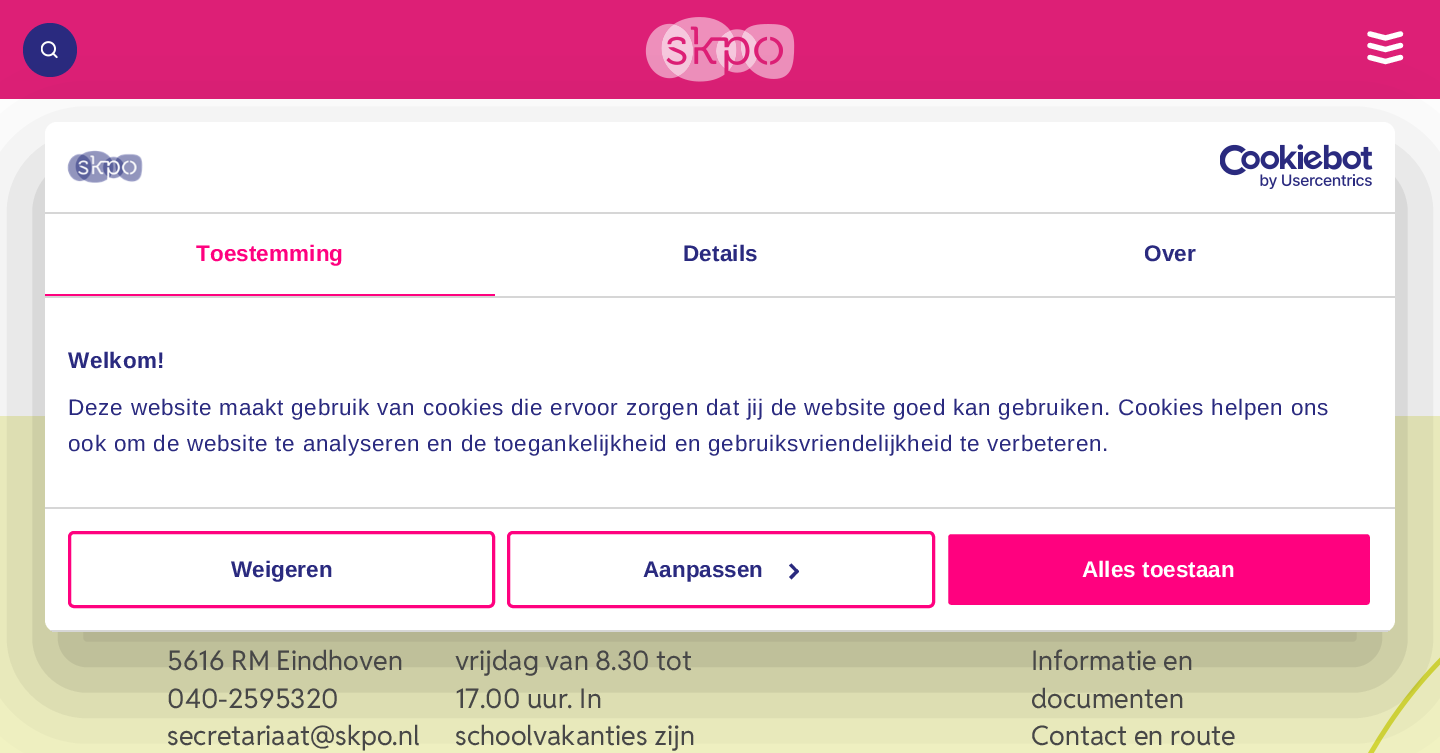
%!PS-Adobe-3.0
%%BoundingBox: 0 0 1440 753
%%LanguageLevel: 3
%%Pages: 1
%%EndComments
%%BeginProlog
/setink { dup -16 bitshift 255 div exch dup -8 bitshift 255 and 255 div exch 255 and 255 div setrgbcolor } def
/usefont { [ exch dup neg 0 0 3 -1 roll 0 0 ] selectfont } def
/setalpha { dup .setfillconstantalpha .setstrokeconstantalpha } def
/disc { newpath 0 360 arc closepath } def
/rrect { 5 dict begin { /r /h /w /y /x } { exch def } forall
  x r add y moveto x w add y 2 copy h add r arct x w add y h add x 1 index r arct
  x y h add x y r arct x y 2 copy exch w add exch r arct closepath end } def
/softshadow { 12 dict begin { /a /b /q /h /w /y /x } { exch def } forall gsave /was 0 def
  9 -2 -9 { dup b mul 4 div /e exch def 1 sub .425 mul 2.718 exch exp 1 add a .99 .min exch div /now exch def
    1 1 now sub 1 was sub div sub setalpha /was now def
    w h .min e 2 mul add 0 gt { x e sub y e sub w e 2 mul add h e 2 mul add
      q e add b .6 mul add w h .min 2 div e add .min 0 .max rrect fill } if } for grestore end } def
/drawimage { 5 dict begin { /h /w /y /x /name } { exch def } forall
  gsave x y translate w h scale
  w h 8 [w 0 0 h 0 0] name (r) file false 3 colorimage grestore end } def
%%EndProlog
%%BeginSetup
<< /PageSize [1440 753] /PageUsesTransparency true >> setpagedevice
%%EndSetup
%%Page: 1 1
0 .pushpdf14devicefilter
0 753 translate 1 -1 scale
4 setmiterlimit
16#FFFFFF setink
0 0 1440 753 rectfill
16#DD1F76 setink
0 0 1440 99 rectfill
16#2A2A7F setink
50 50 27 disc fill
(img1.raw) 41 41 17 18 drawimage
(img2.raw) 645 17 150 65 drawimage
16#FFFFFF setink
5.2 setlinewidth
1 setlinecap
1370 57.5 moveto 1385.5 61.5 lineto 1400.5 57.5 lineto 1370 45.5 moveto 1385.5 49.5 lineto 1400.5 45.5 lineto 1370 34 moveto 1385.5 38 lineto 1400.5 34 lineto stroke
16#F3F4C4 setink
0 416 1440 337 rectfill
(img5.raw) 1368 657 72 96 drawimage
16#000000 setink
45 170 1350 510 12 51 0.3 softshadow
16#FFFFFF setink
45 122 1350 510 12 rrect fill
16#D6D6D6 setink
45 212 1350 2 rectfill
(img3.raw) 67 150 76 33 drawimage
(img4.raw) 1220 144 153 45 drawimage
45 296 1350 2 rectfill
16#FF017F setink
45 294 450 2 rectfill
/LiberationSans-Bold 22.5 usefont
196 261 moveto 0.1 0 (Toestemming) ashow
16#2A2A7F setink
683 261 moveto 0.1 0 (Details) ashow
1144 261 moveto 0.1 0 (Over) ashow
16#D6D6D6 setink
45 507 1350 2 rectfill
16#2A2A7F setink
68 368 moveto 0.5 0 (Welkom!) ashow
/LiberationSans-Regular 22.5 usefont
68 415 moveto 0.75 0 (Deze website maakt gebruik van cookies die ervoor zorgen dat jij de website goed kan gebruiken. Cookies helpen ons) ashow
68 451 moveto 0.75 0 (ook om de website te analyseren en de toegankelijkheid en gebruiksvriendelijkheid te verbeteren.) ashow
gsave
45 122 1350 510 12 rrect clip newpath
16#D6D6D6 setink
45 630 1350 2 rectfill
grestore
16#FF017F setink
3 setlinewidth
0 setlinecap
69.5 532.5 424 74 4.5 rrect stroke
/LiberationSans-Bold 22.5 usefont
16#2A2A7F setink
231 577 moveto (Weigeren) show
16#FF017F setink
508.5 532.5 425 74 4.5 rrect stroke
16#2A2A7F setink
643 577 moveto (Aanpassen) show
791.5 563.5 moveto 799 571.5 lineto 797 573.5 lineto 789 565.5 lineto closepath fill
797 569 moveto 799 571.5 lineto 791.5 579.5 lineto 789 577 lineto closepath fill
16#FF017F setink
946.5 532.5 425 74 4.5 rrect gsave fill grestore
16#FFFFFF setink
stroke
1082 577 moveto (Alles toestaan) show
/RedditSans-Regular 27 usefont
16#474747 setink
[
    [(5616 RM Eindhoven) 167 670]
    [(040-2595320) 167 708]
    [(secretariaat@skpo.nl) 167 745]
    [(vrijdag van 8.30 tot) 455 670]
    [(17.00 uur. In) 455 708]
    [(schoolvakanties zijn) 455 745]
    [(Informatie en) 1031 670]
    [(documenten) 1031 708]
    [(Contact en route) 1031 745]
] { aload pop moveto show } forall
.poppdf14devicefilter showpage
%%EOF
